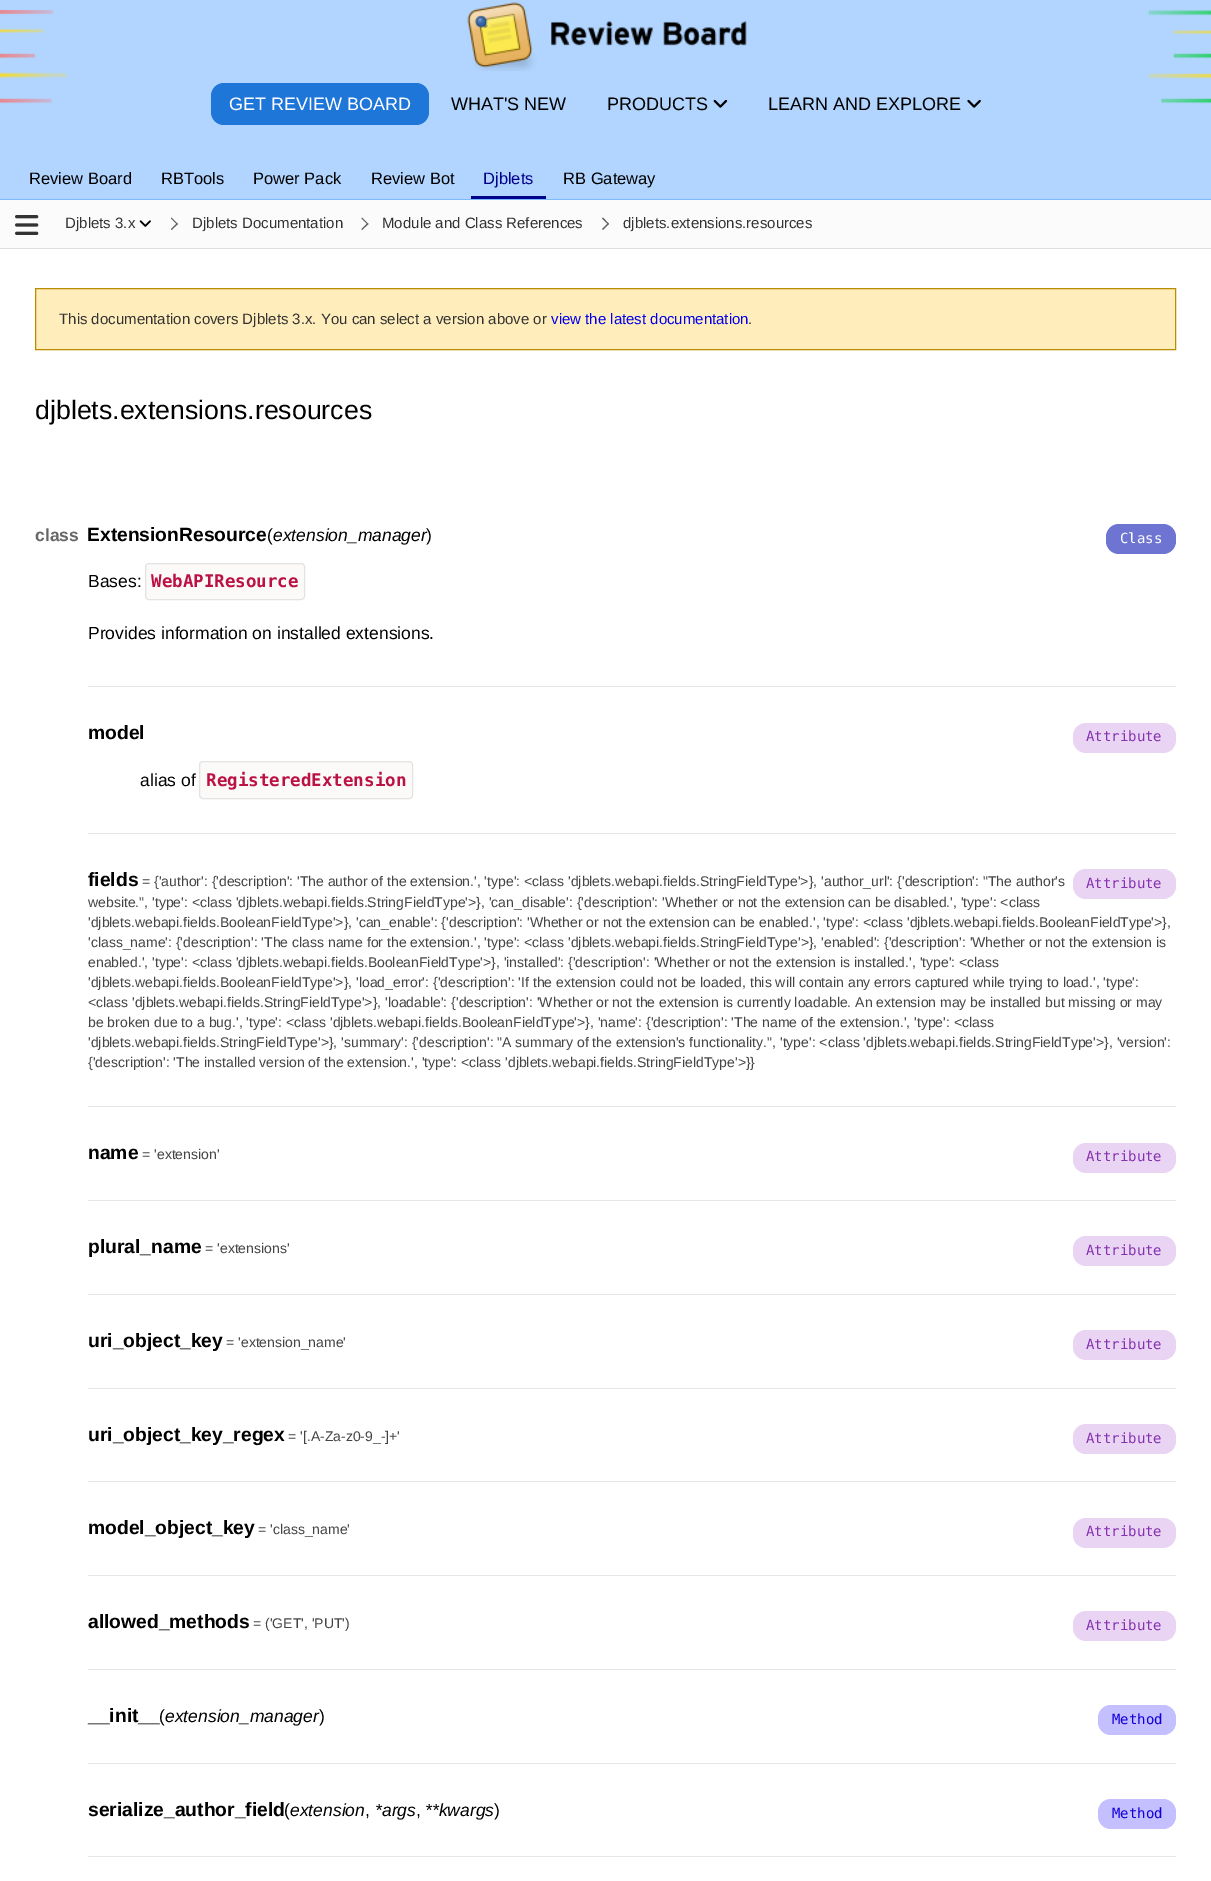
%!PS-Adobe-3.0
%%BoundingBox: 0 0 1211 1881
%%LanguageLevel: 3
%%Pages: 1
%%EndComments
%%BeginProlog
/setink { dup -16 bitshift 255 div exch dup -8 bitshift 255 and 255 div exch 255 and 255 div setrgbcolor } def
/usefont { [ exch dup neg 0 0 3 -1 roll 0 0 ] selectfont } def
/rrect { 5 dict begin { /r /h /w /y /x } { exch def } forall
  x r add y moveto x w add y 2 copy h add r arct x w add y h add x 1 index r arct
  x y h add x y r arct x y 2 copy exch w add exch r arct closepath end } def
/drawimage { 5 dict begin { /h /w /y /x /name } { exch def } forall
  gsave x y translate w h scale
  w h 8 [w 0 0 h 0 0] name (r) file false 3 colorimage grestore end } def
%%EndProlog
%%BeginSetup
<< /PageSize [1211 1881] >> setpagedevice
%%EndSetup
%%Page: 1 1
0 1881 translate 1 -1 scale
4 setmiterlimit
16#FFFFFF setink
0 0 1211 1881 rectfill
16#B1D5FF setink
0 0 1211 199 rectfill
(img1.raw) 0 10 67 94 drawimage
(img2.raw) 467 2 280 69 drawimage
(img3.raw) 1148 10 63 94 drawimage
16#1E76D9 setink
211 83 218 42 13 rrect fill
/LiberationSans-Regular 18 usefont
16#FFFFFF setink
229 110 moveto (GET REVIEW BOARD) show
16#000000 setink
451 110 moveto (WHAT'S NEW) show
607 110 moveto (PRODUCTS) show
(img4.raw) 713 99 15 9 drawimage
768 110 moveto (LEARN AND EXPLORE) show
(img5.raw) 967 99 14 9 drawimage
16#7EBAFF setink
0 199 1211 1 rectfill
/LiberationSans-Regular 16.5 usefont
16#000000 setink
[
    [(Review Board) 29 184]
    [(RBTools) 161 184]
    [(Power Pack) 253 184]
    [(Review Bot) 371 184]
] { aload pop moveto show } forall
16#00008B setink
471 196 75 3 rectfill
483 184 moveto (Djblets) show
16#000000 setink
563 184 moveto (RB Gateway) show
16#FBFBFB setink
0 200 1211 48 rectfill
(img6.raw) 15 215 24 20 drawimage
16#DDDDDD setink
0 248 1211 1 rectfill
/LiberationSans-Regular 15 usefont
16#333333 setink
65 228 moveto (Djblets 3.x) show
(img7.raw) 139 220 12 7 drawimage
16#666666 setink
171.5 217.5 moveto 178 224 lineto 177 224.5 lineto 171 218.5 lineto closepath fill
177 223 moveto 178 224 lineto 171.5 230 lineto 171 229 lineto closepath fill
16#333333 setink
192 228 moveto (Djblets Documentation) show
16#666666 setink
362 217.5 moveto 368.5 224 lineto 367.5 224.5 lineto 361.5 218.5 lineto closepath fill
367.5 223 moveto 368.5 224 lineto 362 230 lineto 361.5 229 lineto closepath fill
16#333333 setink
382 228 moveto (Module and Class References) show
16#666666 setink
603 217.5 moveto 609 224 lineto 608 224.5 lineto 602 218.5 lineto closepath fill
608 223 moveto 609 224 lineto 603 230 lineto 602 229 lineto closepath fill
16#333333 setink
623 228 moveto (djblets.extensions.resources) show
16#FFEEBB setink
35.5 288.5 moveto 1175.5 288.5 lineto 1175.5 349.5 lineto 35.5 349.5 lineto closepath gsave fill grestore
16#BB8C00 setink
stroke
16#333333 setink
59 324 moveto (This documentation covers Djblets 3.x. You can select a version above or) show
16#0000EE setink
551 324 moveto (view the latest documentation) show
16#333333 setink
748 324 moveto (.) show
/LiberationSans-Regular 26.7 usefont
16#000000 setink
35 419 moveto (djblets.extensions.resources) show
/LiberationSans-Bold 17.5 usefont
16#666666 setink
35 541 moveto (class) show
/LiberationSans-Bold 19.25 usefont
16#000000 setink
87 541 moveto (ExtensionResource) show
/LiberationSans-Regular 17.5 usefont
267 541 moveto (\() show
/LiberationSans-Italic 17.5 usefont
273 541 moveto (extension_manager) show
/LiberationSans-Regular 17.5 usefont
426 541 moveto (\)) show
16#6E74D2 setink
1106 524 70 30 13 rrect fill
/DejaVuSansMono-Regular 14 usefont
16#FFFFFF setink
1120 543 moveto (Class) show
/LiberationSans-Regular 17.5 usefont
16#000000 setink
88 587 moveto (Bases:) show
16#FBFAF8 setink
145.5 563.5 159 36 3.5 rrect gsave fill grestore
16#E3E3E3 setink
stroke
/DejaVuSansMono-Bold 17.5 usefont
16#BB1144 setink
151 587 moveto (WebAPIResource) show
/LiberationSans-Regular 17.5 usefont
16#000000 setink
88 639 moveto (Provides information on installed extensions.) show
16#E6E6E6 setink
88 686 1088 1 rectfill
/LiberationSans-Bold 19.25 usefont
16#000000 setink
88 739 moveto (model) show
16#E9D5F3 setink
1073 723 103 30 13 rrect fill
/DejaVuSansMono-Regular 14 usefont
16#8632B0 setink
1086 741 moveto (Attribute) show
/LiberationSans-Regular 17.5 usefont
16#000000 setink
140 786 moveto (alias of) show
16#FBFAF8 setink
199.5 761.5 213 37 3.5 rrect gsave fill grestore
16#E3E3E3 setink
stroke
/DejaVuSansMono-Bold 17.5 usefont
16#BB1144 setink
206 786 moveto (RegisteredExtension) show
16#E6E6E6 setink
88 833 1088 1 rectfill
/LiberationSans-Bold 19.25 usefont
16#000000 setink
88 886 moveto (fields) show
/LiberationSans-Regular 14 usefont
16#444444 setink
[
    [(= {'author': {'description': 'The author of the extension.', 'type': <class 'djblets.webapi.fields.StringFieldType'>}, 'author_url': {'description': "The author's) 142 886]
    [(website.", 'type': <class 'djblets.webapi.fields.StringFieldType'>}, 'can_disable': {'description': 'Whether or not the extension can be disabled.', 'type': <class) 88 907]
    [('djblets.webapi.fields.BooleanFieldType'>}, 'can_enable': {'description': 'Whether or not the extension can be enabled.', 'type': <class 'djblets.webapi.fields.BooleanFieldType'>},) 88 927]
    [('class_name': {'description': 'The class name for the extension.', 'type': <class 'djblets.webapi.fields.StringFieldType'>}, 'enabled': {'description': 'Whether or not the extension is) 88 947]
    [(enabled.', 'type': <class 'djblets.webapi.fields.BooleanFieldType'>}, 'installed': {'description': 'Whether or not the extension is installed.', 'type': <class) 88 967]
    [('djblets.webapi.fields.BooleanFieldType'>}, 'load_error': {'description': 'If the extension could not be loaded, this will contain any errors captured while trying to load.', 'type':) 88 987]
    [(<class 'djblets.webapi.fields.StringFieldType'>}, 'loadable': {'description': 'Whether or not the extension is currently loadable. An extension may be installed but missing or may) 88 1007]
    [(be broken due to a bug.', 'type': <class 'djblets.webapi.fields.BooleanFieldType'>}, 'name': {'description': 'The name of the extension.', 'type': <class) 88 1027]
    [('djblets.webapi.fields.StringFieldType'>}, 'summary': {'description': "A summary of the extension's functionality.", 'type': <class 'djblets.webapi.fields.StringFieldType'>}, 'version':) 88 1047]
    [({'description': 'The installed version of the extension.', 'type': <class 'djblets.webapi.fields.StringFieldType'>}}) 88 1067]
] { aload pop moveto show } forall
16#E9D5F3 setink
1073 869 103 30 13 rrect fill
/DejaVuSansMono-Regular 14 usefont
16#8632B0 setink
1086 888 moveto (Attribute) show
16#E6E6E6 setink
88 1106 1088 1 rectfill
/LiberationSans-Bold 19.25 usefont
16#000000 setink
88 1159 moveto (name) show
/LiberationSans-Regular 14 usefont
16#444444 setink
142 1159 moveto (= 'extension') show
16#E9D5F3 setink
1073 1143 103 30 13 rrect fill
/DejaVuSansMono-Regular 14 usefont
16#8632B0 setink
1086 1161 moveto (Attribute) show
16#E6E6E6 setink
88 1200 1088 1 rectfill
/LiberationSans-Bold 19.25 usefont
16#000000 setink
88 1253 moveto (plural_name) show
/LiberationSans-Regular 14 usefont
16#444444 setink
205 1253 moveto (= 'extensions') show
16#E9D5F3 setink
1073 1236 103 30 13 rrect fill
/DejaVuSansMono-Regular 14 usefont
16#8632B0 setink
1086 1255 moveto (Attribute) show
16#E6E6E6 setink
88 1294 1088 1 rectfill
/LiberationSans-Bold 19.25 usefont
16#000000 setink
88 1347 moveto (uri_object_key) show
/LiberationSans-Regular 14 usefont
16#444444 setink
226 1347 moveto (= 'extension_name') show
16#E9D5F3 setink
1073 1330 103 30 13 rrect fill
/DejaVuSansMono-Regular 14 usefont
16#8632B0 setink
1086 1349 moveto (Attribute) show
16#E6E6E6 setink
88 1388 1088 1 rectfill
/LiberationSans-Bold 19.25 usefont
16#000000 setink
88 1441 moveto (uri_object_key_regex) show
/LiberationSans-Regular 14 usefont
16#444444 setink
288 1441 moveto (= '[.A-Za-z0-9_-]+') show
16#E9D5F3 setink
1073 1424 103 30 13 rrect fill
/DejaVuSansMono-Regular 14 usefont
16#8632B0 setink
1086 1443 moveto (Attribute) show
16#E6E6E6 setink
88 1481 1088 1 rectfill
/LiberationSans-Bold 19.25 usefont
16#000000 setink
88 1534 moveto (model_object_key) show
/LiberationSans-Regular 14 usefont
16#444444 setink
258 1534 moveto (= 'class_name') show
16#E9D5F3 setink
1073 1518 103 30 13 rrect fill
/DejaVuSansMono-Regular 14 usefont
16#8632B0 setink
1086 1536 moveto (Attribute) show
16#E6E6E6 setink
88 1575 1088 1 rectfill
/LiberationSans-Bold 19.25 usefont
16#000000 setink
88 1628 moveto (allowed_methods) show
/LiberationSans-Regular 14 usefont
16#444444 setink
253 1628 moveto (= \('GET', 'PUT'\)) show
16#E9D5F3 setink
1073 1611 103 30 13 rrect fill
/DejaVuSansMono-Regular 14 usefont
16#8632B0 setink
1086 1630 moveto (Attribute) show
16#E6E6E6 setink
88 1669 1088 1 rectfill
/LiberationSans-Bold 19.25 usefont
16#000000 setink
88 1722 moveto (__init__) show
/LiberationSans-Regular 17.5 usefont
159 1722 moveto (\() show
/LiberationSans-Italic 17.5 usefont
165 1722 moveto (extension_manager) show
/LiberationSans-Regular 17.5 usefont
319 1722 moveto (\)) show
16#C4BFFF setink
1098 1705 78 30 13 rrect fill
/DejaVuSansMono-Regular 14 usefont
16#1100D9 setink
1112 1724 moveto (Method) show
16#E6E6E6 setink
88 1763 1088 1 rectfill
/LiberationSans-Bold 19.25 usefont
16#000000 setink
88 1816 moveto (serialize_author_field) show
/LiberationSans-Regular 17.5 usefont
284 1816 moveto (\() show
/LiberationSans-Italic 17.5 usefont
290 1816 moveto (extension) show
/LiberationSans-Regular 17.5 usefont
365 1816 moveto (,) show
/LiberationSans-Italic 17.5 usefont
375 1816 moveto (*args) show
/LiberationSans-Regular 17.5 usefont
416 1816 moveto (,) show
/LiberationSans-Italic 17.5 usefont
425 1816 moveto (**kwargs) show
/LiberationSans-Regular 17.5 usefont
494 1816 moveto (\)) show
16#C4BFFF setink
1098 1799 78 30 13 rrect fill
/DejaVuSansMono-Regular 14 usefont
16#1100D9 setink
1112 1818 moveto (Method) show
16#E6E6E6 setink
88 1856 1088 1 rectfill
showpage
%%EOF
